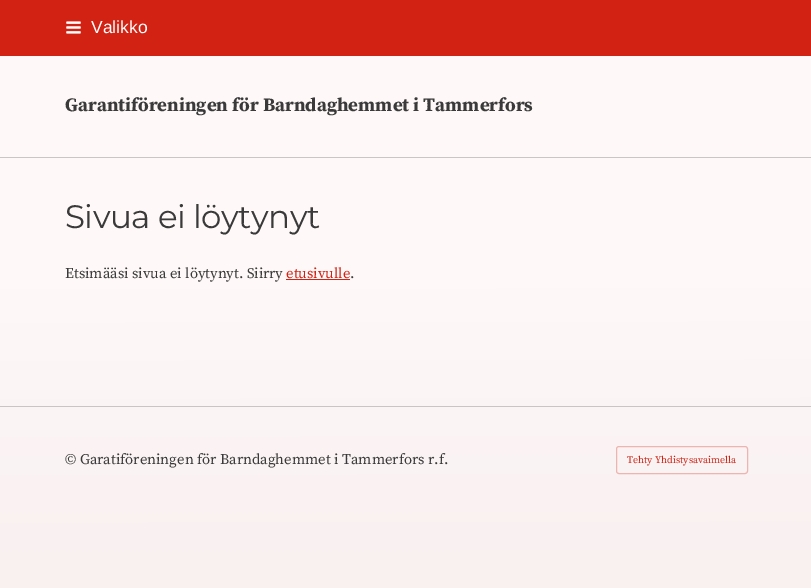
%!PS-Adobe-3.0
%%BoundingBox: 0 0 811 588
%%LanguageLevel: 3
%%Pages: 1
%%EndComments
%%BeginProlog
/setink { dup -16 bitshift 255 div exch dup -8 bitshift 255 and 255 div exch 255 and 255 div setrgbcolor } def
/usefont { [ exch dup neg 0 0 3 -1 roll 0 0 ] selectfont } def
/rrect { 5 dict begin { /r /h /w /y /x } { exch def } forall
  x r add y moveto x w add y 2 copy h add r arct x w add y h add x 1 index r arct
  x y h add x y r arct x y 2 copy exch w add exch r arct closepath end } def
/drawimage { 5 dict begin { /h /w /y /x /name } { exch def } forall
  gsave x y translate w h scale
  w h 8 [w 0 0 h 0 0] name (r) file false 3 colorimage grestore end } def
%%EndProlog
%%BeginSetup
<< /PageSize [811 588] >> setpagedevice
%%EndSetup
%%Page: 1 1
0 588 translate 1 -1 scale
4 setmiterlimit
16#FFFFFF setink
0 0 811 588 rectfill
16#D12214 setink
0 0 811 56 rectfill
(img1.raw) 66 21 15 13 drawimage
/LiberationSans-Regular 17.5 usefont
16#FFFFFF setink
91 33 moveto (Valikko) show
gsave 0 56 moveto 811 56 lineto 811 588 lineto 0 588 lineto closepath clip newpath
<< /ShadingType 2 /ColorSpace /DeviceRGB /Coords [405 52 406 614] /Extend [true true] /Function << /FunctionType 3 /Domain [0 1] /Functions [<< /FunctionType 2 /Domain [0 1] /C0 [0.996 0.973 0.973] /C1 [0.996 0.973 0.973] /N 1 >> << /FunctionType 2 /Domain [0 1] /C0 [0.996 0.973 0.973] /C1 [0.973 0.937 0.937] /N 1 >>] /Bounds [0.4] /Encode [0 1 0 1] >> >> shfill grestore
16#CBC6C6 setink
0 157 811 1 rectfill
/SourceSerifPro-Bold 18.9 usefont
16#3A3A3A setink
65 111 moveto (Garantiföreningen för Barndaghemmet i Tammerfors) show
/Montserrat-Thin 32.5 usefont
65 228 moveto -0.5 0 (Sivua ei löytynyt) ashow
/SourceSerifPro-Regular 14.75 usefont
65 278 moveto (Etsimääsi sivua ei löytynyt. Siirry) show
16#D12214 setink
286 278 moveto (etusivulle) show
286 279 64 1 rectfill
16#3A3A3A setink
350 278 moveto (.) show
16#CAC4C4 setink
0 406 811 1 rectfill
16#3A3A3A setink
65 464 moveto (© Garatiföreningen för Barndaghemmet i Tammerfors r.f.) show
16#EEB4B0 setink
616.5 446.5 131 27 2.5 rrect stroke
/SourceSerifPro-Regular 10 usefont
16#D12214 setink
627 463 moveto (Tehty Yhdistysavaimella) show
showpage
%%EOF
